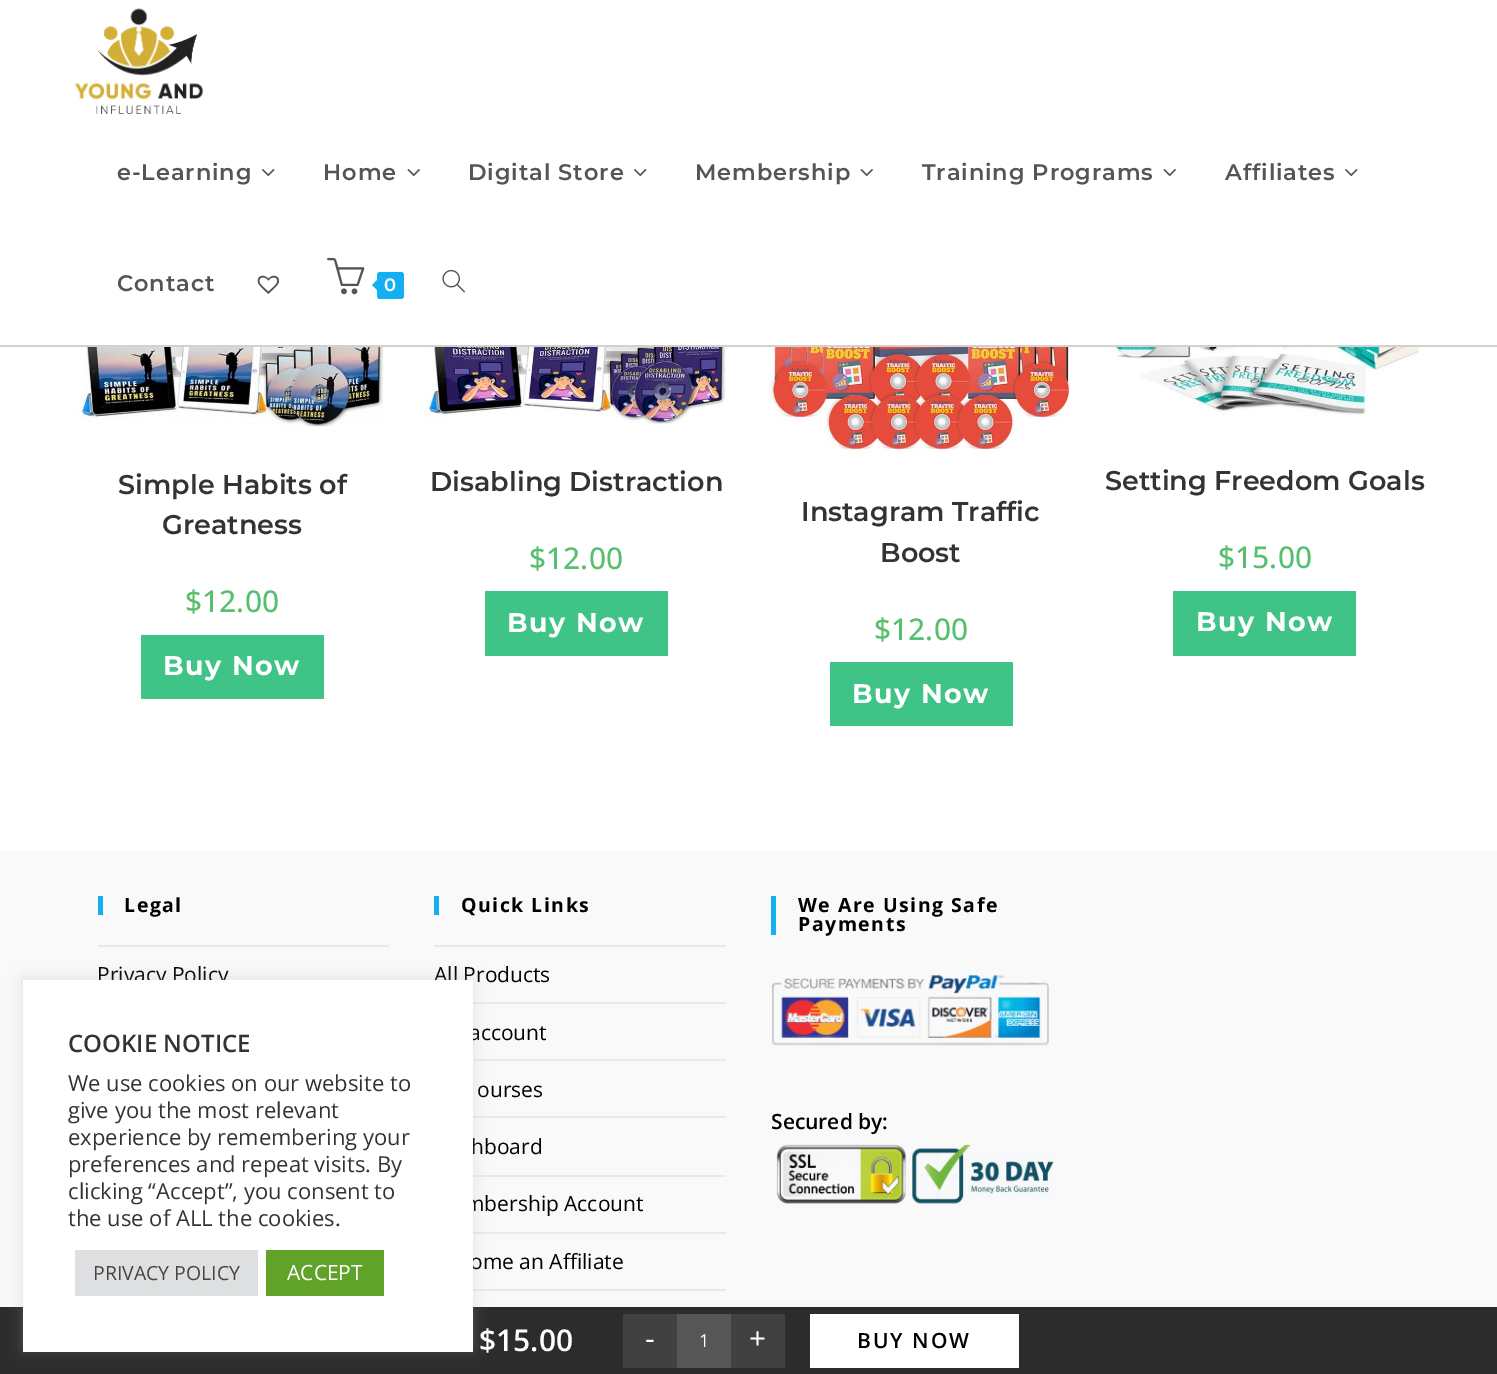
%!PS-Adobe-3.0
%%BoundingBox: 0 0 1497 1374
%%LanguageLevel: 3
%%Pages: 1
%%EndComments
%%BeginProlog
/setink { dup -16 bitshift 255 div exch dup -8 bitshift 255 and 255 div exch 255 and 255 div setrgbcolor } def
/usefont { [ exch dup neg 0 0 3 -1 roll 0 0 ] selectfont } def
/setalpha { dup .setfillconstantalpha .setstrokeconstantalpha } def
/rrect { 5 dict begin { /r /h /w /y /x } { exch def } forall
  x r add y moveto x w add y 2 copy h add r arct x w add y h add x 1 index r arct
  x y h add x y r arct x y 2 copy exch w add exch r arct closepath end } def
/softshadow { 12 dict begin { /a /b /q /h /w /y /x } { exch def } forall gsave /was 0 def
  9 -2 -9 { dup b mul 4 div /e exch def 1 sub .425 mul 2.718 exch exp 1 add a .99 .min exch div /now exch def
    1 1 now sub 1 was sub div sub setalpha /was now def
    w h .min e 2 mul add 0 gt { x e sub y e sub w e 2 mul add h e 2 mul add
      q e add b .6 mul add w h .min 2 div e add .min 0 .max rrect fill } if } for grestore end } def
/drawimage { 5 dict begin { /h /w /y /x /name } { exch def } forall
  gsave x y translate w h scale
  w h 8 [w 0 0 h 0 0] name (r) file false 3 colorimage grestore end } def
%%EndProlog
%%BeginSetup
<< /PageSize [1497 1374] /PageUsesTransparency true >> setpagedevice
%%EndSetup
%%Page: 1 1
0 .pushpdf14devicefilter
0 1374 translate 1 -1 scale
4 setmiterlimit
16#FFFFFF setink
0 0 1497 1374 rectfill
16#D1D1D1 setink
0 345 1497 2 rectfill
(img1.raw) 74 8 129 106 drawimage
/Montserrat-SemiBold 22.5 usefont
16#555555 setink
117 180 moveto 0.9 0 (e-Learning) ashow
(img2.raw) 262 169 13 8 drawimage
323 180 moveto 0.9 0 (Home) ashow
(img3.raw) 407 169 13 8 drawimage
468 180 moveto 0.9 0 (Digital Store) ashow
(img2.raw) 634 169 13 8 drawimage
695 180 moveto 0.9 0 (Membership) ashow
(img3.raw) 860 169 13 8 drawimage
922 180 moveto 0.9 0 (Training Programs) ashow
(img3.raw) 1163 169 13 8 drawimage
1225 180 moveto 0.9 0 (Affiliates) ashow
(img2.raw) 1345 169 13 8 drawimage
117 291 moveto 0.9 0 (Contact) ashow
(img4.raw) 257 275 22 19 drawimage
(img5.raw) 327 257 38 38 drawimage
16#13AFF0 setink
377 272 27 27 3 rrect fill
379.5 277.5 moveto 379.5 292.5 lineto 372 285 lineto closepath fill
/Montserrat-SemiBold 18 usefont
16#FFFFFF setink
384 291 moveto (0) show
(img6.raw) 442 269 23 24 drawimage
(img7.raw) 78 347 306 80 drawimage
/Montserrat-SemiBold 27 usefont
16#333333 setink
118 494 moveto (Simple Habits of) show
162 534 moveto (Greatness) show
/OpenSans-Medium 30 usefont
16#57BF6D setink
185 612 moveto ($12.00) show
16#3FC387 setink
141 635 183 64 rectfill
/Montserrat-Bold 27 usefont
16#FFFFFF setink
163 675 moveto 1.5 0 (Buy Now) ashow
(img8.raw) 422 347 305 80 drawimage
/Montserrat-SemiBold 27 usefont
16#333333 setink
430 491 moveto (Disabling Distraction) show
/OpenSans-Medium 30 usefont
16#57BF6D setink
529 569 moveto ($12.00) show
16#3FC387 setink
485 591 183 65 rectfill
/Montserrat-Bold 27 usefont
16#FFFFFF setink
507 632 moveto 1.5 0 (Buy Now) ashow
(img9.raw) 767 347 303 106 drawimage
/Montserrat-SemiBold 27 usefont
16#333333 setink
801 521 moveto (Instagram Traffic) show
880 562 moveto (Boost) show
/OpenSans-Medium 30 usefont
16#57BF6D setink
874 640 moveto ($12.00) show
16#3FC387 setink
830 662 183 64 rectfill
/Montserrat-Bold 27 usefont
16#FFFFFF setink
852 703 moveto 1.5 0 (Buy Now) ashow
(img10.raw) 1111 347 310 68 drawimage
/Montserrat-SemiBold 27 usefont
16#333333 setink
1105 490 moveto (Setting Freedom Goals) show
/OpenSans-Medium 30 usefont
16#57BF6D setink
1218 568 moveto ($15.00) show
16#3FC387 setink
1173 591 183 65 rectfill
/Montserrat-Bold 27 usefont
16#FFFFFF setink
1196 631 moveto 1.5 0 (Buy Now) ashow
16#F9F9F9 setink
0 851 1497 456 rectfill
16#13AFF0 setink
98 896 5 19 rectfill
/OpenSans-Bold 19.5 usefont
16#000000 setink
124 912 moveto 1.5 0 (Legal) ashow
16#E9E9E9 setink
98 945 291 2 rectfill
/OpenSans-Regular 21 usefont
16#000000 setink
97 982 moveto (Privacy Policy) show
16#13AFF0 setink
434 896 5 19 rectfill
/OpenSans-Bold 19.5 usefont
16#000000 setink
461 912 moveto 1.5 0 (Quick Links) ashow
16#E9E9E9 setink
434 945 292 2 rectfill
473 1002 253 2 rectfill
/OpenSans-Regular 21 usefont
16#000000 setink
434 982 moveto (All Products) show
16#E9E9E9 setink
473 1059 253 2 rectfill
16#000000 setink
469 1040 moveto (account) show
16#E9E9E9 setink
473 1116 253 2 rectfill
16#000000 setink
477 1097 moveto (ourses) show
16#E9E9E9 setink
473 1175 253 2 rectfill
16#000000 setink
471 1154 moveto (hboard) show
16#E9E9E9 setink
473 1232 253 2 rectfill
16#000000 setink
465 1211 moveto (mbership Account) show
16#E9E9E9 setink
473 1289 253 2 rectfill
16#000000 setink
470 1269 moveto (ome an Affiliate) show
16#13AFF0 setink
771 896 5 39 rectfill
/OpenSans-Bold 19.5 usefont
16#000000 setink
798 912 moveto 1.5 0 (We Are Using Safe) ashow
798 931 moveto 1.5 0 (Payments) ashow
(img11.raw) 772 975 277 71 drawimage
/OpenSans-SemiBold 21 usefont
771 1129 moveto (Secured by:) show
(img12.raw) 776 1144 278 60 drawimage
16#2C2C2C setink
0 1307 1497 67 rectfill
/OpenSans-SemiBold 30 usefont
16#FFFFFF setink
479 1351 moveto ($15.00) show
16#414141 setink
623 1314 54 54 rectfill
/OpenSans-Regular 30 usefont
16#FFFFFF setink
645 1349 moveto (-) show
16#565656 setink
677 1314 54 54 rectfill
/OpenSans-Regular 18 usefont
16#FFFFFF setink
699 1347 moveto (1) show
16#414141 setink
731 1314 54 54 rectfill
/OpenSans-Regular 30 usefont
16#FFFFFF setink
749 1349 moveto (+) show
810 1314 209 54 rectfill
/OpenSans-SemiBold 21 usefont
16#000000 setink
857 1348 moveto 2 0 (BUY NOW) ashow
16#ACABAB setink
23 978 450 372 0 7.5 0.3 softshadow
16#FFFFFF setink
23 980 450 372 rectfill
/OpenSans-SemiBold 24 usefont
16#333333 setink
68 1052 moveto (COOKIE NOTICE) show
/OpenSans-Regular 22 usefont
[
    [(We use cookies on our website to) 68 1091]
    [(give you the most relevant) 68 1118]
    [(experience by remembering your) 68 1145]
    [(preferences and repeat visits. By) 68 1172]
    [(clicking “Accept”, you consent to) 68 1199]
    [(the use of ALL the cookies.) 68 1226]
] { aload pop moveto show } forall
16#DEDFE0 setink
75 1250 183 46 rectfill
/OpenSans-Regular 19.5 usefont
16#444444 setink
93 1280 moveto (PRIVACY POLICY) show
16#61A229 setink
266 1250 118 46 rectfill
/OpenSans-Regular 21 usefont
16#FFFFFF setink
287 1280 moveto (ACCEPT) show
.poppdf14devicefilter showpage
%%EOF
